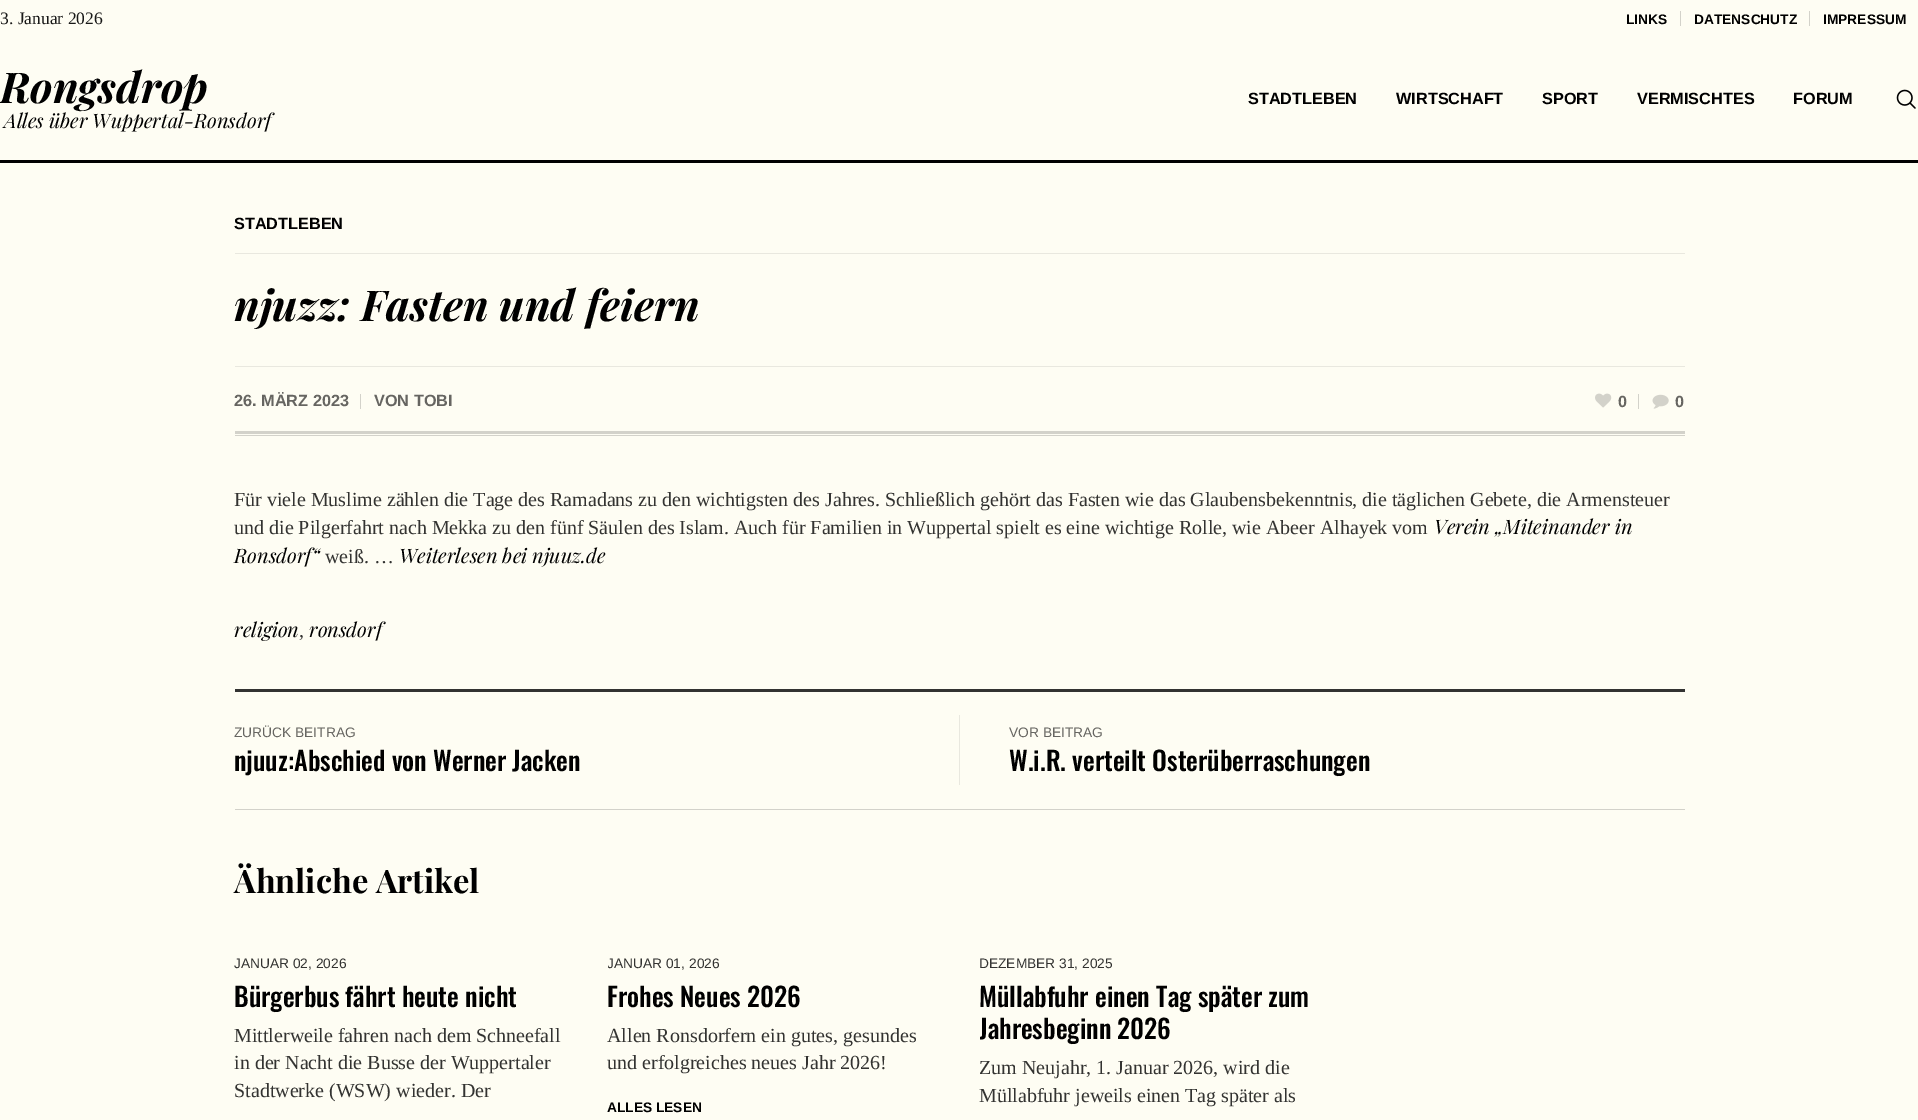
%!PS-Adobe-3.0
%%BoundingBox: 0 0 1918 1120
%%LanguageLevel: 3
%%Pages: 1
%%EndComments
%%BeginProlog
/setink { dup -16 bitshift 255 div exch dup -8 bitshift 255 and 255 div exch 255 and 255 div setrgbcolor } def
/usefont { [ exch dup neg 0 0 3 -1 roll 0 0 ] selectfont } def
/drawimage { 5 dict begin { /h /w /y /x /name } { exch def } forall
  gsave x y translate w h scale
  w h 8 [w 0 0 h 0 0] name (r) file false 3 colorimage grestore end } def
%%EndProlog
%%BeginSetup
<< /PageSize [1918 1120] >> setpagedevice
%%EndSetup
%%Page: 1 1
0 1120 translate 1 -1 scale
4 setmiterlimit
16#FEFDF3 setink
0 0 1918 1120 rectfill
/LiberationSerif-Regular 17.5 usefont
16#191918 setink
0 24 moveto (3. Januar 2026) show
/LiberationSans-Bold 13.75 usefont
16#000000 setink
1626 24 moveto (LINKS) show
16#D3D2CA setink
1680 11 1 15 rectfill
16#000000 setink
1694 24 moveto (DATENSCHUTZ) show
16#D3D2CA setink
1809 11 1 15 rectfill
16#000000 setink
1823 24 moveto (IMPRESSUM) show
0 160 1918 3 rectfill
/PlayfairDisplay-BoldItalic 42.5 usefont
0 103 moveto (Rongsdrop) show
/PlayfairDisplay-Italic 20 usefont
4 128 moveto (Alles über Wuppertal-Ronsdorf) show
/LiberationSans-Bold 16.25 usefont
[
    [(STADTLEBEN) 1248 104]
    [(WIRTSCHAFT) 1396 104]
    [(SPORT) 1542 104]
    [(VERMISCHTES) 1637 104]
    [(FORUM) 1793 104]
] { aload pop moveto show } forall
(img1.raw) 1896 89 20 20 drawimage
16#E9E8DF setink
235 253 1450 1 rectfill
16#000000 setink
234 229 moveto (STADTLEBEN) show
/PlayfairDisplay-BoldItalic 42.5 usefont
234 321 moveto (njuzz: Fasten und feiern) show
[
    [235 431 1450 3 16#D3D2CA]
    [235 435 1450 1 16#D3D2CA]
    [235 366 1450 1 16#E9E8DF]
] { aload pop setink rectfill } forall
/LiberationSans-Bold 16.25 usefont
16#666561 setink
234 406 moveto (26. MÄRZ 2023) show
16#D3D2CA setink
360 394 1 15 rectfill
16#666561 setink
374 406 moveto (VON TOBI) show
(img2.raw) 1595 393 17 15 drawimage
1618 407 moveto (0) show
16#D3D2CA setink
1638 394 1 15 rectfill
(img3.raw) 1652 394 17 15 drawimage
16#666561 setink
1675 407 moveto (0) show
/LiberationSerif-Regular 20 usefont
16#333331 setink
234 506 moveto (Für viele Muslime zählen die Tage des Ramadans zu den wichtigsten des Jahres. Schließlich gehört das Fasten wie das Glaubensbekenntnis, die täglichen Gebete, die Armensteuer) show
234 534 moveto (und die Pilgerfahrt nach Mekka zu den fünf Säulen des Islam. Auch für Familien in Wuppertal spielt es eine wichtige Rolle, wie Abeer Alhayek vom) show
/PlayfairDisplay-Italic 20 usefont
16#000000 setink
1434 534 moveto (Verein „Miteinander in) show
234 563 moveto (Ronsdorf“) show
/LiberationSerif-Regular 20 usefont
16#333331 setink
325 563 moveto (weiß. …) show
/PlayfairDisplay-Italic 20 usefont
16#000000 setink
399 563 moveto (Weiterlesen bei njuuz.de) show
234 637 moveto (religion) show
/LiberationSerif-Regular 20 usefont
16#333331 setink
299 637 moveto (,) show
/PlayfairDisplay-Italic 20 usefont
16#000000 setink
309 637 moveto (ronsdorf) show
16#333331 setink
235 689 1450 3 rectfill
/LiberationSans-Regular 13.75 usefont
16#666561 setink
234 737 moveto (ZURÜCK BEITRAG) show
/Oswald-Medium 26.25 usefont
16#000000 setink
234 771 moveto (njuuz:Abschied von Werner Jacken) show
16#E9E8DF setink
959 715 1 70 rectfill
/LiberationSans-Regular 13.75 usefont
16#666561 setink
1009 737 moveto (VOR BEITRAG) show
/Oswald-Medium 26.25 usefont
16#000000 setink
1009 771 moveto (W.i.R. verteilt Osterüberraschungen) show
16#D3D2CA setink
235 809 1450 1 rectfill
/PlayfairDisplay-Bold 32.5 usefont
16#000000 setink
234 893 moveto (Ähnliche Artikel) show
/LiberationSans-Regular 13.75 usefont
16#333331 setink
234 968 moveto (JANUAR 02, 2026) show
/Oswald-Medium 26.25 usefont
16#000000 setink
234 1007 moveto (Bürgerbus fährt heute nicht) show
/LiberationSerif-Regular 20 usefont
16#333331 setink
[
    [(Mittlerweile fahren nach dem Schneefall) 234 1042]
    [(in der Nacht die Busse der Wuppertaler) 234 1069]
    [(Stadtwerke \(WSW\) wieder. Der) 234 1097]
] { aload pop moveto show } forall
gsave
608 938 335 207 rectclip
/LiberationSans-Regular 13.75 usefont
607 968 moveto (JANUAR 01,) show
grestore
/LiberationSans-Regular 13.75 usefont
689 968 moveto (2026) show
/Oswald-Medium 26.25 usefont
16#000000 setink
607 1007 moveto (Frohes Neues 2026) show
/LiberationSerif-Regular 20 usefont
16#333331 setink
607 1042 moveto (Allen Ronsdorfern ein gutes, gesundes) show
607 1069 moveto (und erfolgreiches neues Jahr 2026!) show
/LiberationSans-Bold 13.75 usefont
16#000000 setink
607 1112 moveto (ALLES LESEN) show
/LiberationSans-Regular 13.75 usefont
16#333331 setink
979 968 moveto (DEZEMBER 31, 2025) show
/Oswald-Medium 26.25 usefont
16#000000 setink
979 1007 moveto (Müllabfuhr einen Tag später zum) show
gsave
980 938 335 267 rectclip
979 1039 moveto (Jahresbeginn 2026) show
grestore
/LiberationSerif-Regular 20 usefont
16#333331 setink
979 1074 moveto (Zum Neujahr, 1. Januar 2026, wird die) show
979 1102 moveto (Müllabfuhr jeweils einen Tag später als) show
showpage
%%EOF
